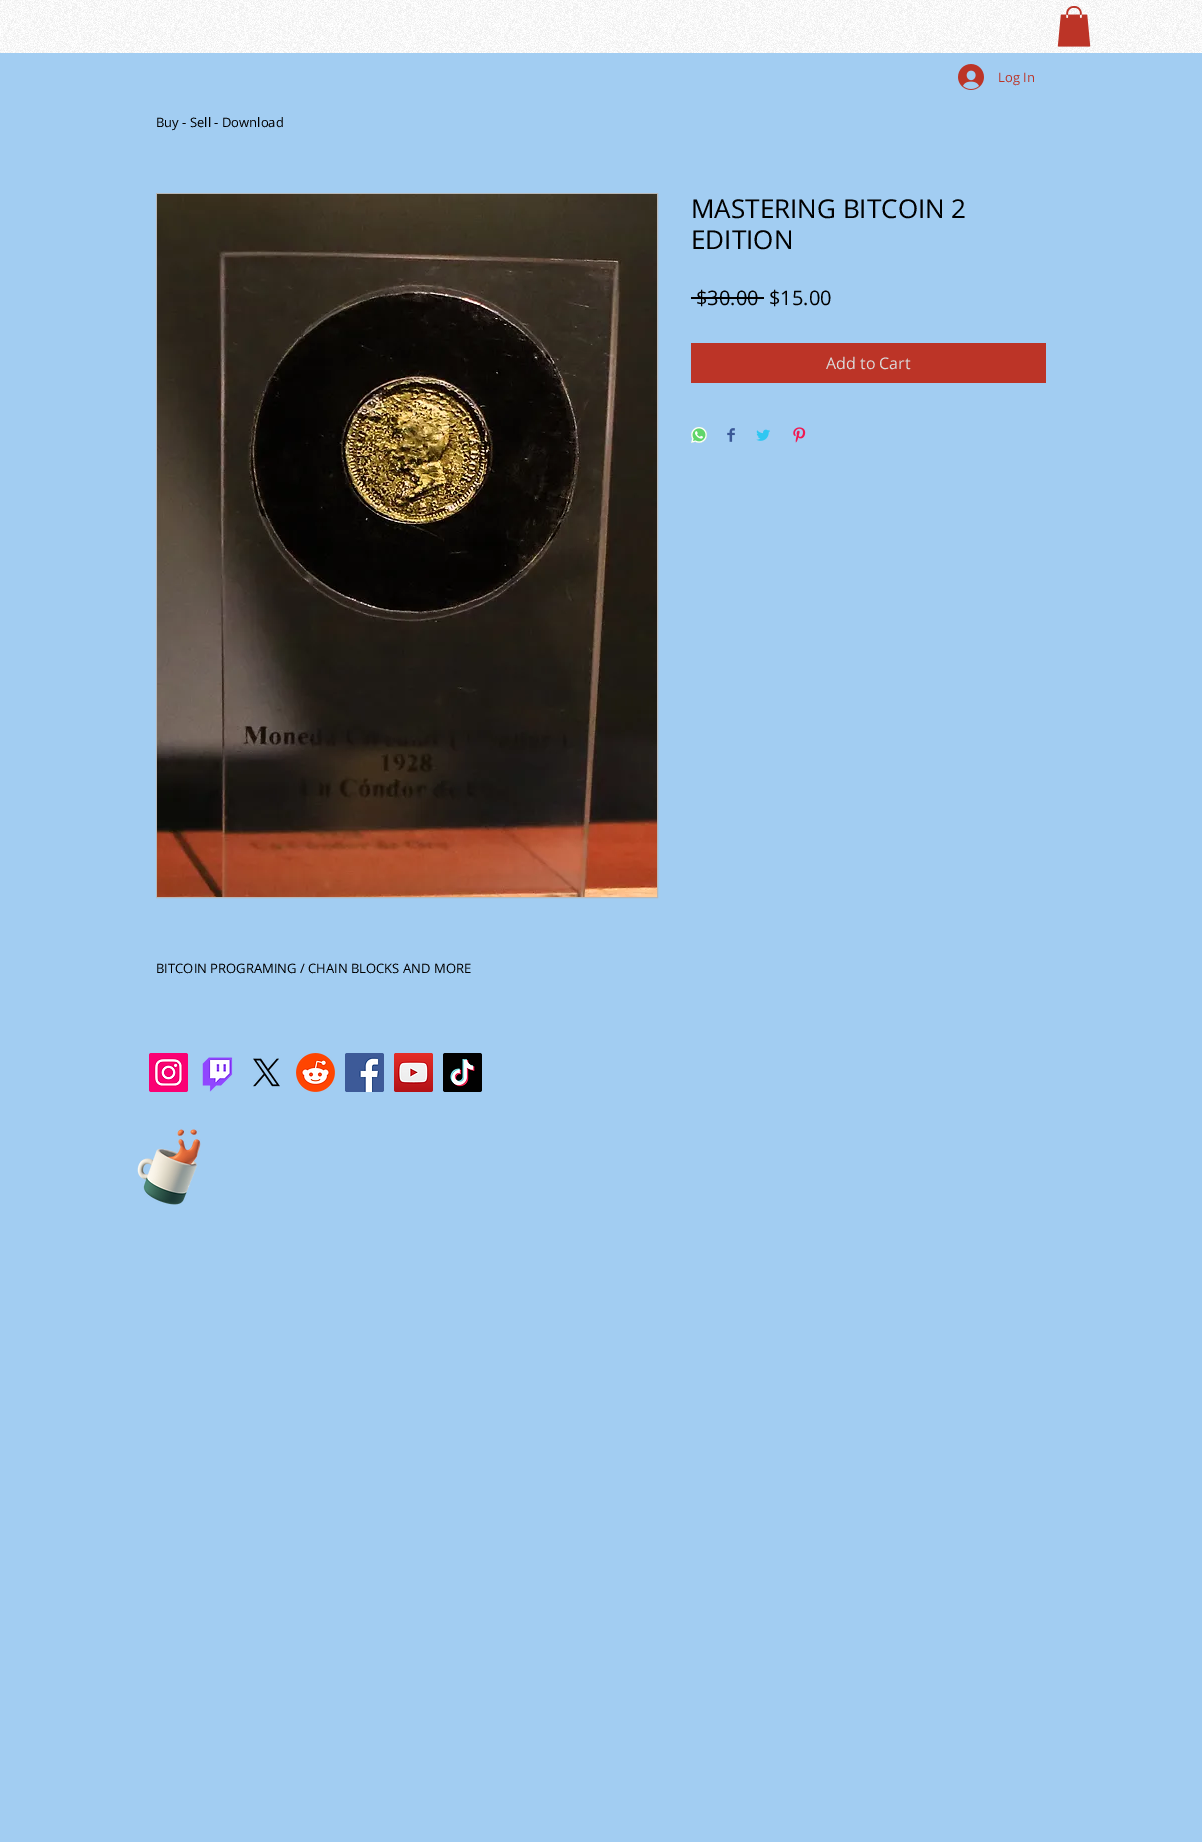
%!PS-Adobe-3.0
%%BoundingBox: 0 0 1202 1842
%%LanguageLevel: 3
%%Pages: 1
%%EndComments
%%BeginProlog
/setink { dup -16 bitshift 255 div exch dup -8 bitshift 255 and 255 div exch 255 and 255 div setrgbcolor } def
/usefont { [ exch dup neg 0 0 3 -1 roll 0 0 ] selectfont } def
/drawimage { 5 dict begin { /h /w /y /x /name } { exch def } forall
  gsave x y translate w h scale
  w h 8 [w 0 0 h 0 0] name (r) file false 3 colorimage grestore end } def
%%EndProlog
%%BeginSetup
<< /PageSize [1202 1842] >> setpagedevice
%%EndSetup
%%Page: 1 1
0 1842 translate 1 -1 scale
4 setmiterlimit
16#A2CDF2 setink
0 0 1202 1842 rectfill
16#FFFFFF setink
0 0 1202 53 rectfill
(img1.raw) 0 0 1202 53 drawimage
(img2.raw) 1057 6 34 41 drawimage
(img3.raw) 958 64 26 26 drawimage
/OpenSans-Regular 13 usefont
16#BC3427 setink
998 82 moveto (Log In) show
16#000000 setink
156 127 moveto (Buy - Sell - Download) show
/OpenSans-Regular 26 usefont
691 218 moveto (MASTERING BITCOIN 2) show
691 249 moveto (EDITION) show
/OpenSans-Regular 20 usefont
696 305 moveto ($30.00) show
691 297 73 2 rectfill
769 305 moveto ($15.00) show
16#BC3427 setink
691 343 355 40 rectfill
/OpenSans-Regular 16 usefont
16#DBDBDB setink
826 369 moveto (Add to Cart) show
(img4.raw) 691 427 16 16 drawimage
(img5.raw) 727 428 8 14 drawimage
(img6.raw) 756 429 14 12 drawimage
(img7.raw) 793 427 13 16 drawimage
16#B8B8B8 setink
156.5 193.5 501 704 rectstroke
(img8.raw) 157 194 500 703 drawimage
/OpenSans-Regular 13 usefont
16#000000 setink
156 973 moveto (BITCOIN PROGRAMING / CHAIN BLOCKS AND MORE) show
(img9.raw) 149 1053 39 39 drawimage
(img10.raw) 202 1057 31 35 drawimage
(img11.raw) 253 1058 27 29 drawimage
(img12.raw) 296 1053 39 39 drawimage
(img13.raw) 345 1053 39 39 drawimage
(img14.raw) 394 1053 39 39 drawimage
(img15.raw) 443 1053 39 39 drawimage
(img16.raw) 137 1129 64 76 drawimage
showpage
%%EOF
